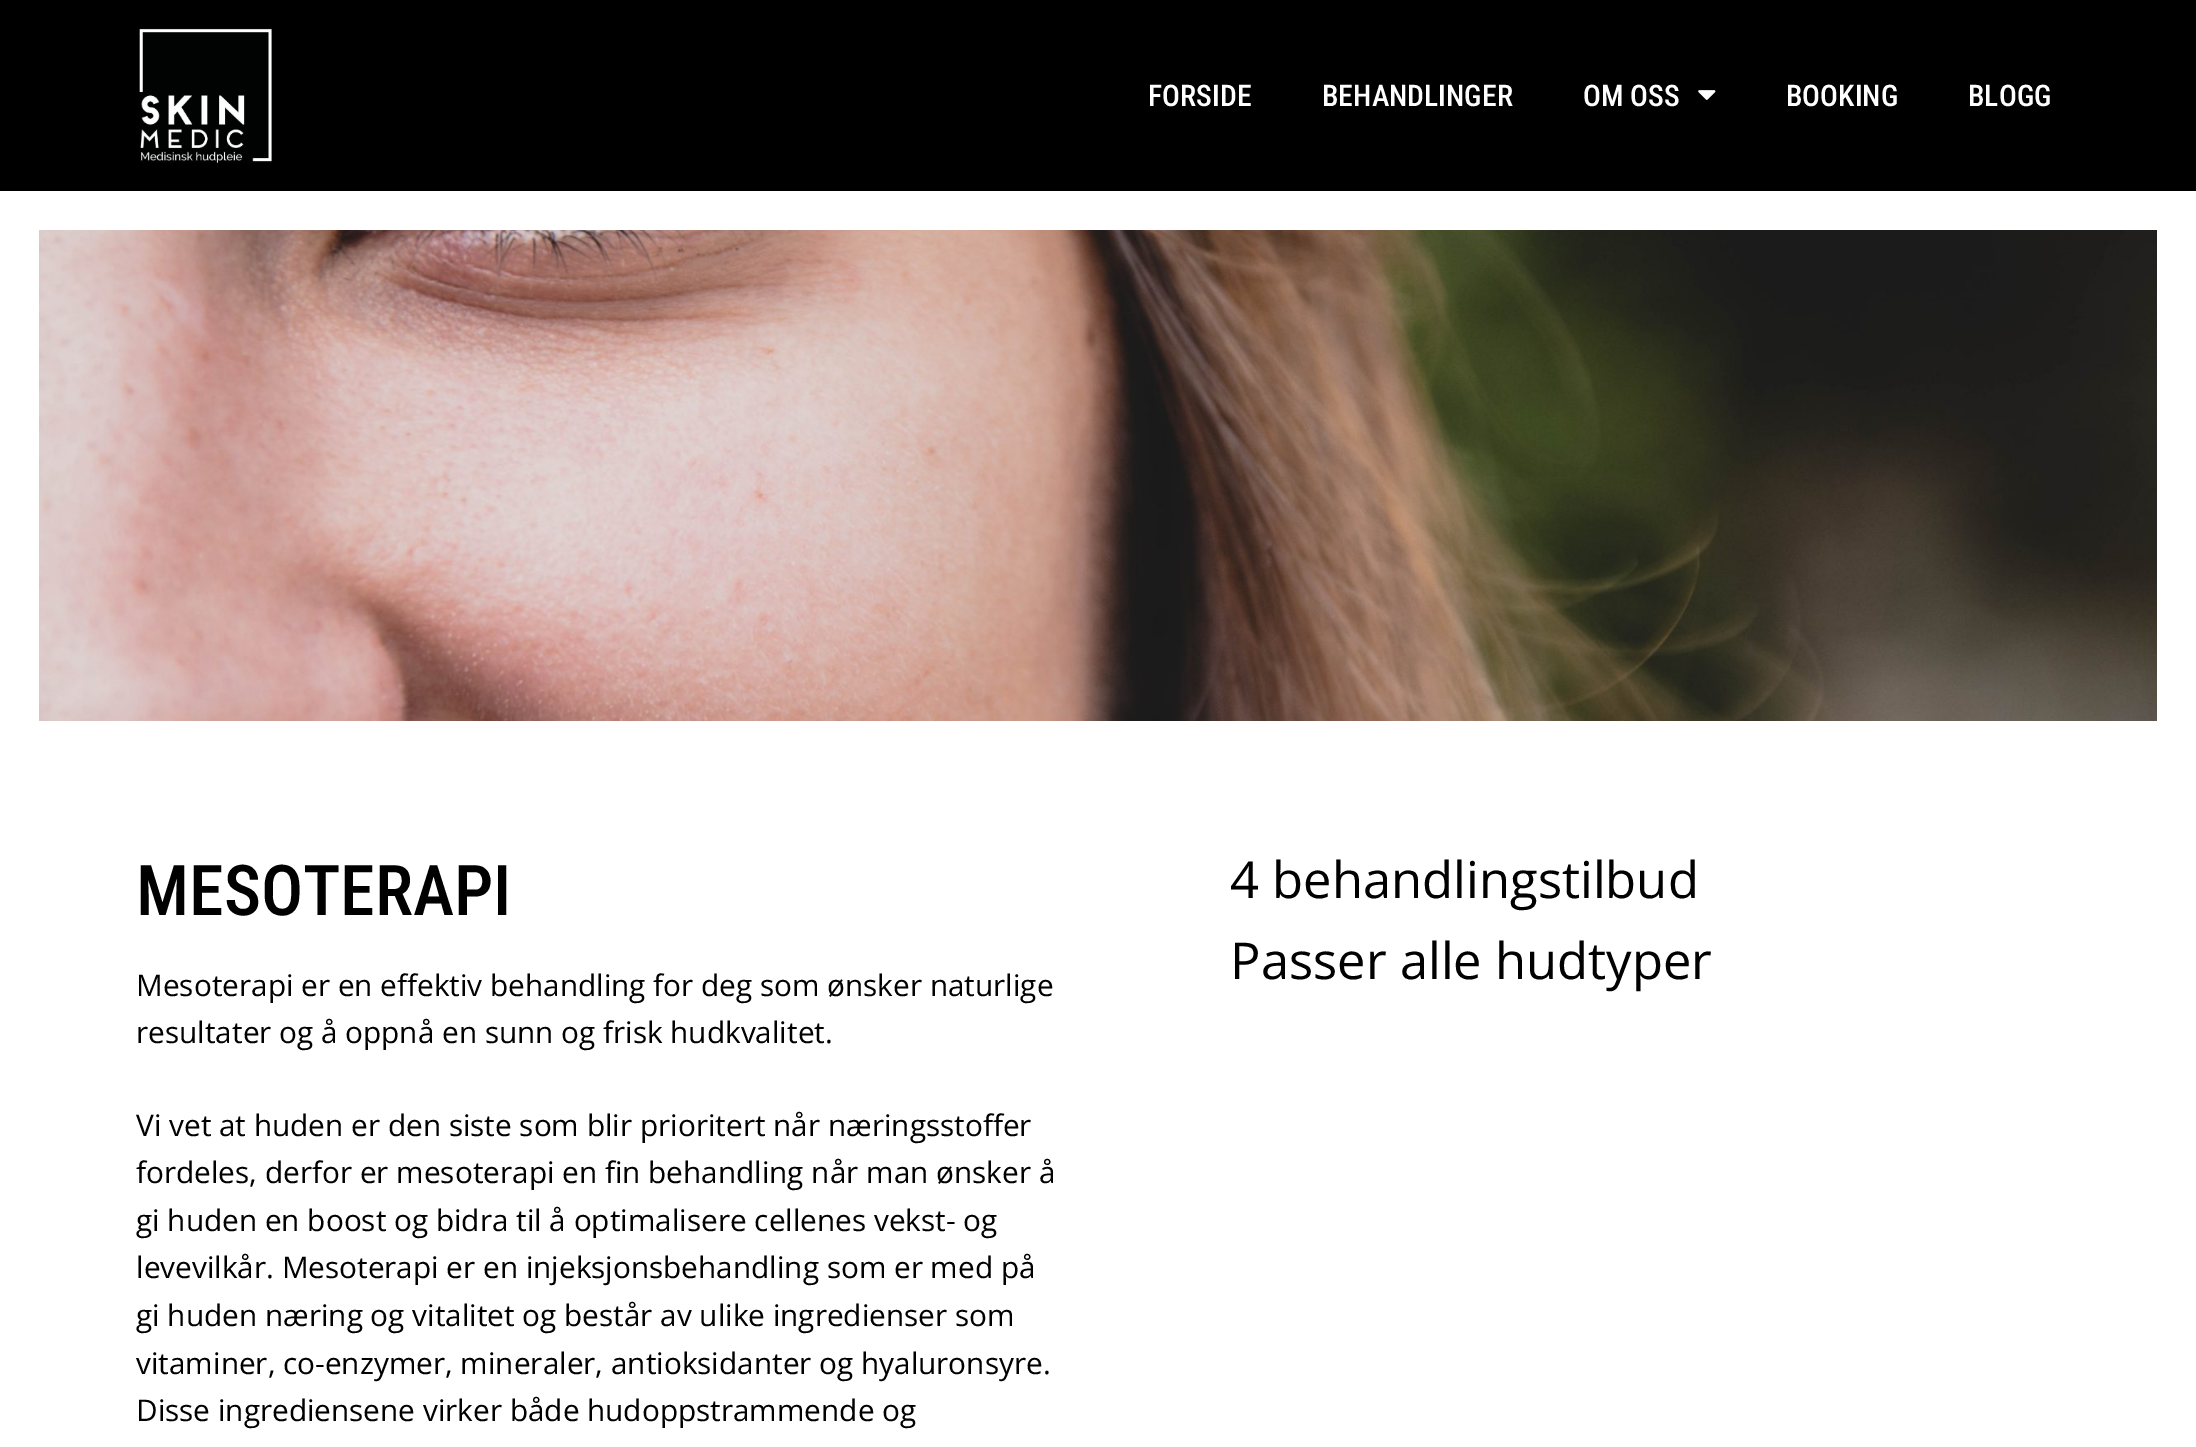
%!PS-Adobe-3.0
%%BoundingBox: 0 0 2196 1447
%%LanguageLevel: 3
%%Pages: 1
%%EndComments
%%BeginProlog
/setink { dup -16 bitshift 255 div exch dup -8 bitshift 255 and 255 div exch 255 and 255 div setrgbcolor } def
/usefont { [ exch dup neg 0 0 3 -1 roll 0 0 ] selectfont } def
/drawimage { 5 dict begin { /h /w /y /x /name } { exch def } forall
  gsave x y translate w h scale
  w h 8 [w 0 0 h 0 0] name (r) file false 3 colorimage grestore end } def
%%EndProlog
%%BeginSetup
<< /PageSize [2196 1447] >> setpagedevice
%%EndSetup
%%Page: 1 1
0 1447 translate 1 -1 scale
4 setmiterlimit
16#FFFFFF setink
0 0 2196 1447 rectfill
16#000000 setink
0 0 2196 191 rectfill
(img1.raw) 139 28 133 135 drawimage
/RobotoCondensed-Medium 29.75 usefont
16#FFFFFF setink
[
    [(FORSIDE) 1148 106]
    [(BEHANDLINGER) 1322 106]
    [(OM OSS) 1583 106]
] { aload pop moveto show } forall
(img2.raw) 1698 90 18 10 drawimage
1786 106 moveto (BOOKING) show
1968 106 moveto (BLOGG) show
(img3.raw) 39 230 2118 491 drawimage
/RobotoCondensed-Medium 70 usefont
16#000000 setink
136 915 moveto (MESOTERAPI) show
/OpenSans-Regular 29.75 usefont
[
    [(Mesoterapi er en effektiv behandling for deg som ønsker naturlige) 136 996]
    [(resultater og å oppnå en sunn og frisk hudkvalitet.) 136 1043]
    [(Vi vet at huden er den siste som blir prioritert når næringsstoffer) 136 1136]
    [(fordeles, derfor er mesoterapi en fin behandling når man ønsker å) 136 1183]
    [(gi huden en boost og bidra til å optimalisere cellenes vekst- og) 136 1231]
    [(levevilkår. Mesoterapi er en injeksjonsbehandling som er med på) 136 1278]
    [(gi huden næring og vitalitet og består av ulike ingredienser som) 136 1326]
    [(vitaminer, co-enzymer, mineraler, antioksidanter og hyaluronsyre.) 136 1374]
    [(Disse ingrediensene virker både hudoppstrammende og) 136 1421]
] { aload pop moveto show } forall
/OpenSans-Regular 50.75 usefont
1230 898 moveto (4 behandlingstilbud) show
1230 979 moveto (Passer alle hudtyper) show
showpage
%%EOF
